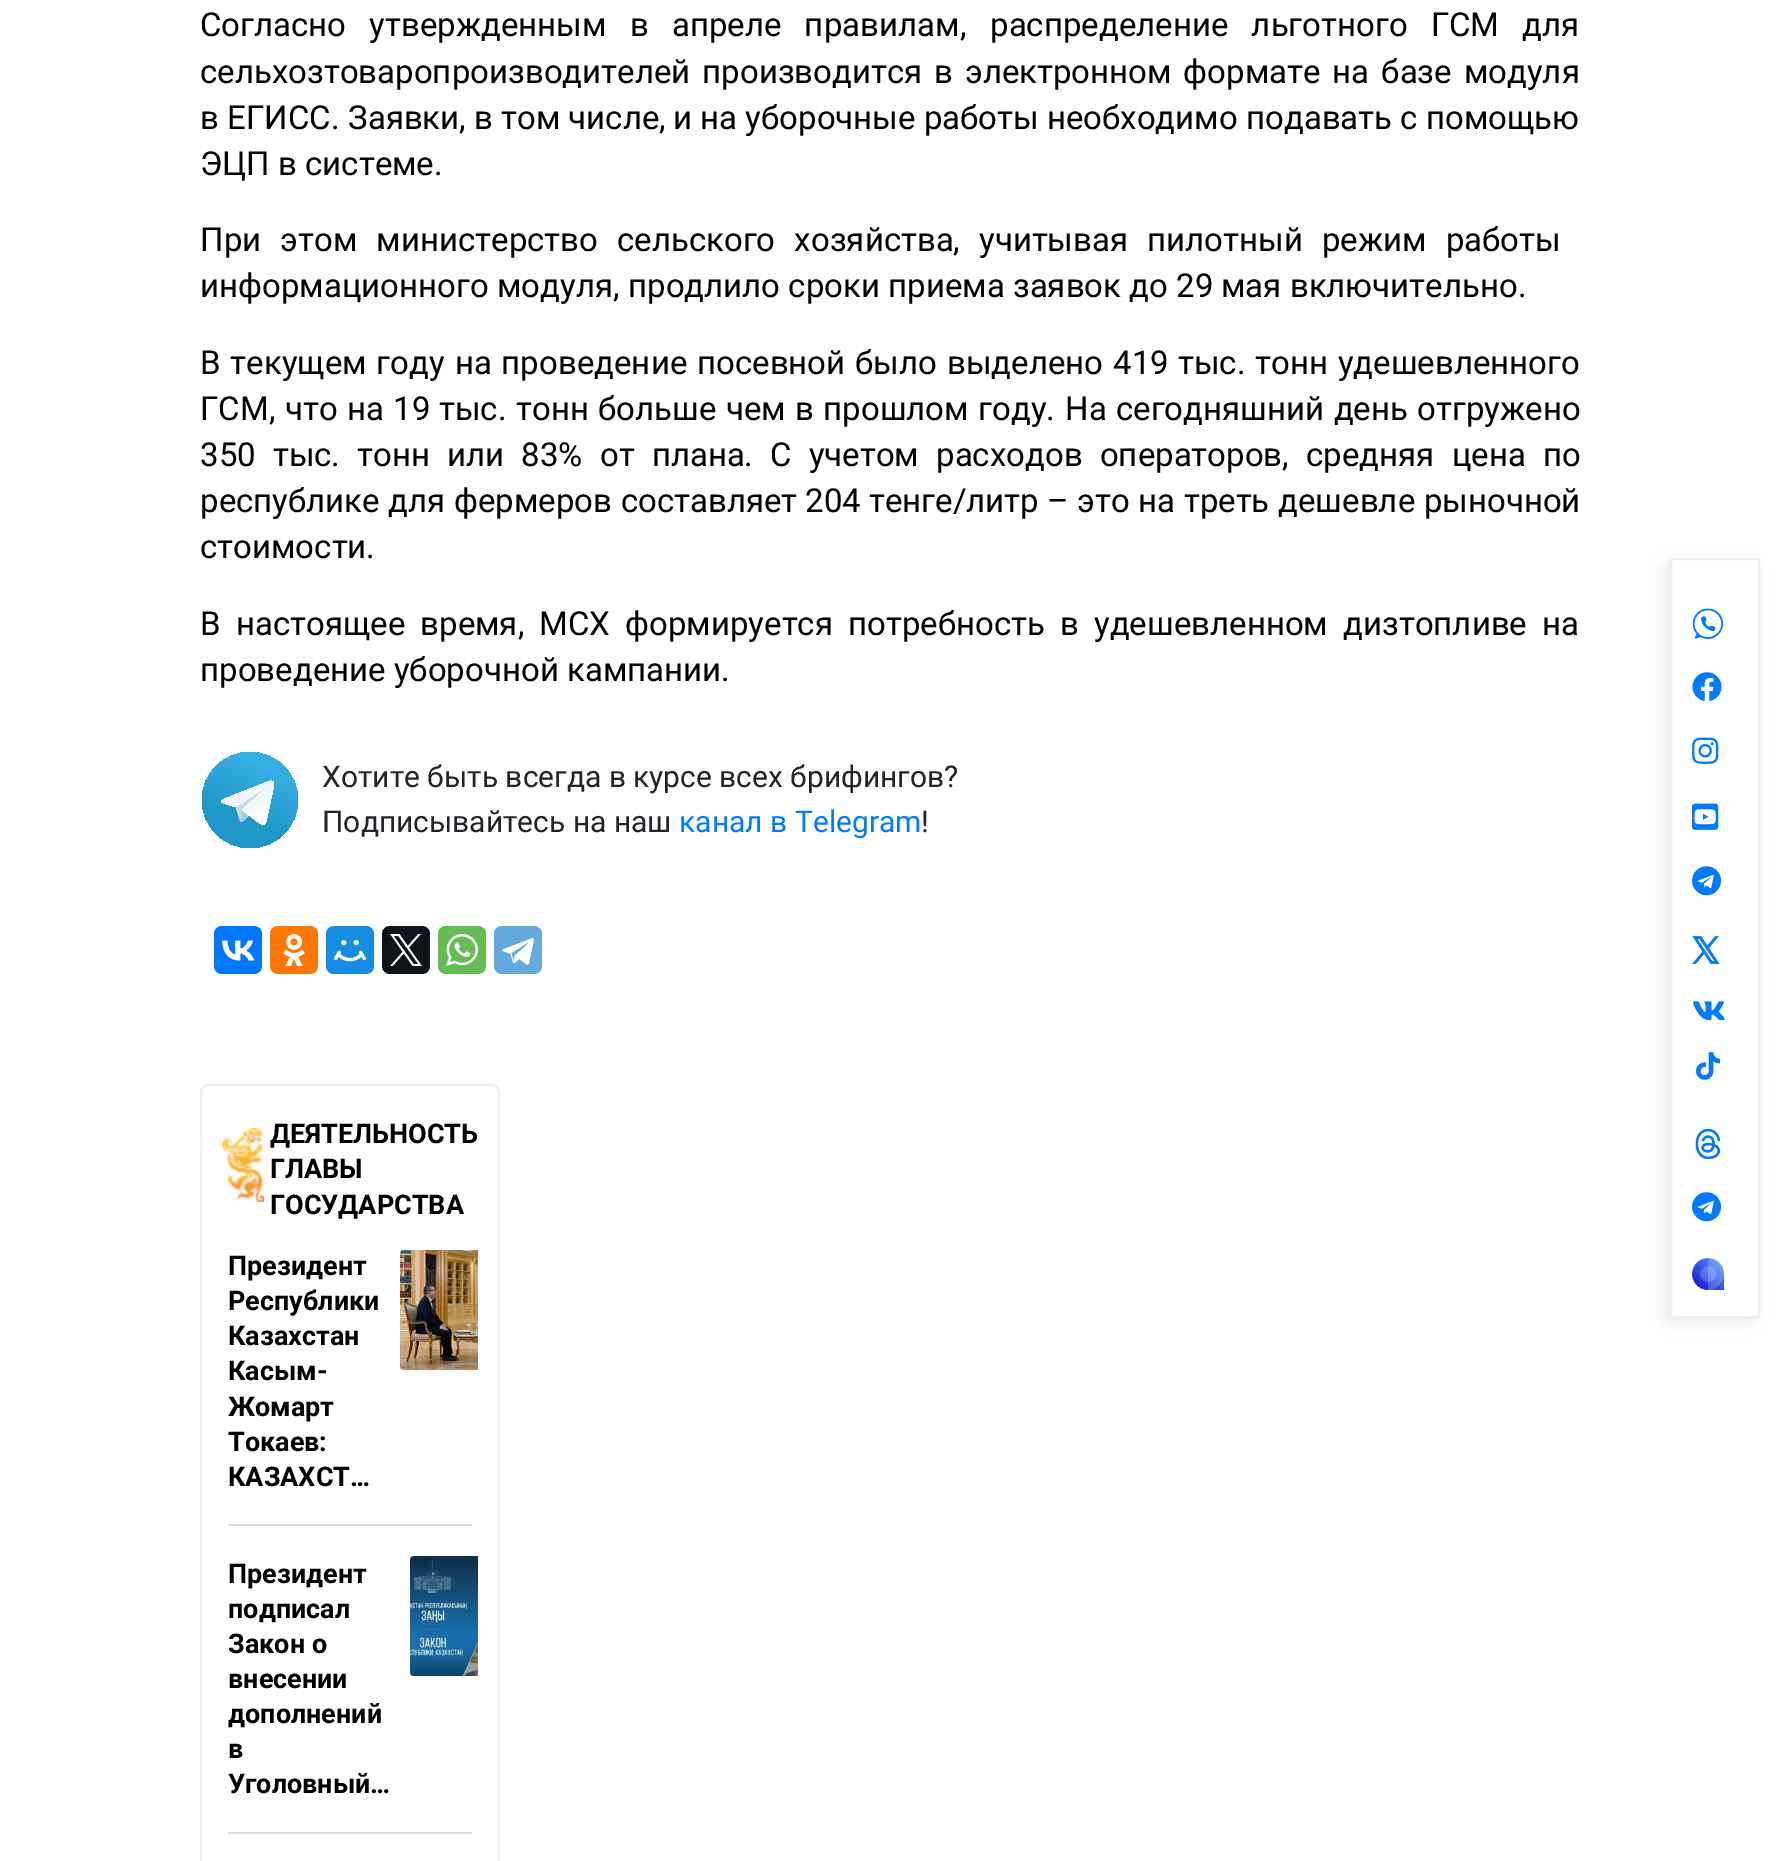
%!PS-Adobe-3.0
%%BoundingBox: 0 0 1779 1861
%%LanguageLevel: 3
%%Pages: 1
%%EndComments
%%BeginProlog
/setink { dup -16 bitshift 255 div exch dup -8 bitshift 255 and 255 div exch 255 and 255 div setrgbcolor } def
/usefont { [ exch dup neg 0 0 3 -1 roll 0 0 ] selectfont } def
/setalpha { dup .setfillconstantalpha .setstrokeconstantalpha } def
/disc { newpath 0 360 arc closepath } def
/rrect { 5 dict begin { /r /h /w /y /x } { exch def } forall
  x r add y moveto x w add y 2 copy h add r arct x w add y h add x 1 index r arct
  x y h add x y r arct x y 2 copy exch w add exch r arct closepath end } def
/softshadow { 12 dict begin { /a /b /q /h /w /y /x } { exch def } forall gsave /was 0 def
  9 -2 -9 { dup b mul 4 div /e exch def 1 sub .425 mul 2.718 exch exp 1 add a .99 .min exch div /now exch def
    1 1 now sub 1 was sub div sub setalpha /was now def
    w h .min e 2 mul add 0 gt { x e sub y e sub w e 2 mul add h e 2 mul add
      q e add b .6 mul add w h .min 2 div e add .min 0 .max rrect fill } if } for grestore end } def
/drawimage { 5 dict begin { /h /w /y /x /name } { exch def } forall
  gsave x y translate w h scale
  w h 8 [w 0 0 h 0 0] name (r) file false 3 colorimage grestore end } def
%%EndProlog
%%BeginSetup
<< /PageSize [1779 1861] /PageUsesTransparency true >> setpagedevice
%%EndSetup
%%Page: 1 1
0 .pushpdf14devicefilter
0 1861 translate 1 -1 scale
4 setmiterlimit
16#FFFFFF setink
0 0 1779 1861 rectfill
/Roboto-Regular 33 usefont
16#000000 setink
200 36 moveto 15 0 32 (Согласно утвержденным в апреле правилам) widthshow
/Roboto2-Regular 33 usefont
960 36 moveto (,) show
/Roboto-Regular 33 usefont
990 36 moveto 15 0 32 (распределение льготного ГСМ для) widthshow
200 83 moveto 3.75 0 32 (сельхозтоваропроизводителей производится в электронном формате на базе модуля) widthshow
200 129 moveto (в ЕГИСС) show
/Roboto2-Regular 33 usefont
331 129 moveto (.) show
/Roboto-Regular 33 usefont
348 129 moveto (Заявки) show
/Roboto2-Regular 33 usefont
459 129 moveto (,) show
/Roboto-Regular 33 usefont
474 129 moveto (в том числе) show
/Roboto2-Regular 33 usefont
659 129 moveto (,) show
/Roboto-Regular 33 usefont
673 129 moveto (и на уборочные работы необходимо подавать с помощью) show
200 175 moveto (ЭЦП в системе) show
/Roboto2-Regular 33 usefont
434 175 moveto (.) show
/Roboto-Regular 33 usefont
200 251 moveto 11 0 32 (При этом министерство сельского хозяйства) widthshow
/Roboto2-Regular 33 usefont
953 251 moveto (,) show
/Roboto-Regular 33 usefont
979 251 moveto 11 0 32 (учитывая пилотный режим работы) widthshow
200 297 moveto (информационного модуля) show
/Roboto2-Regular 33 usefont
613 297 moveto (,) show
/Roboto-Regular 33 usefont
628 297 moveto (продлило сроки приема заявок до) show
/Roboto2-Regular 33 usefont
1176 297 moveto (29) show
/Roboto-Regular 33 usefont
1221 297 moveto (мая включительно) show
/Roboto2-Regular 33 usefont
1518 297 moveto (.) show
/Roboto-Regular 33 usefont
200 374 moveto 1.75 0 32 (В текущем году на проведение посевной было выделено) widthshow
/Roboto2-Regular 33 usefont
1113 374 moveto (419) show
/Roboto-Regular 33 usefont
1178 374 moveto (тыс) show
/Roboto2-Regular 33 usefont
1237 374 moveto (.) show
/Roboto-Regular 33 usefont
1255 374 moveto 1.75 0 32 (тонн удешевленного) widthshow
200 420 moveto (ГСМ) show
/Roboto2-Regular 33 usefont
269 420 moveto (,) show
/Roboto-Regular 33 usefont
285 420 moveto 1.25 0 32 (что на) widthshow
/Roboto2-Regular 33 usefont
393 420 moveto (19) show
/Roboto-Regular 33 usefont
439 420 moveto (тыс) show
/Roboto2-Regular 33 usefont
498 420 moveto (.) show
/Roboto-Regular 33 usefont
516 420 moveto 1.25 0 32 (тонн больше чем в прошлом году) widthshow
/Roboto2-Regular 33 usefont
1046 420 moveto (.) show
/Roboto-Regular 33 usefont
1065 420 moveto 1.25 0 32 (На сегодняшний день отгружено) widthshow
/Roboto2-Regular 33 usefont
200 466 moveto (350) show
/Roboto-Regular 33 usefont
273 466 moveto (тыс) show
/Roboto2-Regular 33 usefont
331 466 moveto (.) show
/Roboto-Regular 33 usefont
357 466 moveto 9 0 32 (тонн или) widthshow
/Roboto2-Regular 33 usefont
521 466 moveto (83%) show
/Roboto-Regular 33 usefont
600 466 moveto 9 0 32 (от плана) widthshow
/Roboto2-Regular 33 usefont
744 466 moveto (.) show
/Roboto-Regular 33 usefont
770 466 moveto 9 0 32 (С учетом расходов операторов) widthshow
/Roboto2-Regular 33 usefont
1282 466 moveto (,) show
/Roboto-Regular 33 usefont
1306 466 moveto 9 0 32 (средняя цена по) widthshow
200 512 moveto 0.5 0 32 (республике для фермеров составляет) widthshow
/Roboto2-Regular 33 usefont
805 512 moveto (204) show
/Roboto-Regular 33 usefont
869 512 moveto (тенге) show
/Roboto2-Regular 33 usefont
953 512 moveto (/) show
/Roboto-Regular 33 usefont
966 512 moveto (литр) show
/Roboto2-Regular 33 usefont
1047 512 moveto (–) show
/Roboto-Regular 33 usefont
1077 512 moveto 0.5 0 32 (это на треть дешевле рыночной) widthshow
200 558 moveto (стоимости) show
/Roboto2-Regular 33 usefont
366 558 moveto (.) show
/Roboto-Regular 33 usefont
200 635 moveto 7 0 32 (В настоящее время) widthshow
/Roboto2-Regular 33 usefont
518 635 moveto (,) show
/Roboto-Regular 33 usefont
539 635 moveto 7 0 32 (МСХ формируется потребность в удешевленном дизтопливе на) widthshow
200 681 moveto (проведение уборочной кампании) show
/Roboto2-Regular 33 usefont
721 681 moveto (.) show
gsave 250 800 48 disc clip newpath
<< /ShadingType 2 /ColorSpace /DeviceRGB /Coords [266 768 242 824] /Extend [true true] /Function << /FunctionType 2 /Domain [0 1] /C0 [0.216 0.682 0.886] /C1 [0.118 0.588 0.784] /N 1 >> >> shfill grestore
16#C8DAEA setink
241 822 moveto 240 821.5 lineto 235 805 lineto 270 784 lineto fill
16#A9C9DD setink
241 822 moveto 243.5 822 248.5 816 250 814.5 curveto 242 810 lineto fill
gsave 242 810 moveto 261 824 lineto 264 825 265 825 266 822 curveto 274 785 lineto 274 782 272 780 270 781 curveto 224 799 lineto 221 800 221 802 223 803 curveto 235 807 lineto 263 789 lineto 264 788 265 789 264 790 curveto clip newpath
<< /ShadingType 2 /ColorSpace /DeviceRGB /Coords [256 800 264 817] /Extend [true true] /Function << /FunctionType 2 /Domain [0 1] /C0 [0.937 0.969 0.988] /C1 [1 1 1] /N 1 >> >> shfill grestore
/Roboto-Regular 30 usefont
16#212529 setink
322 787 moveto (Хотите быть всегда в курсе всех брифингов) show
/Roboto2-Regular 30 usefont
944 787 moveto (?) show
/Roboto-Regular 30 usefont
322 832 moveto (Подписывайтесь на наш) show
16#007BFF setink
679 832 moveto (канал в) show
/Roboto2-Regular 30 usefont
795 832 moveto (Telegram) show
16#212529 setink
921 832 moveto (!) show
16#0077FF setink
214 926 48 48 8 rrect fill
(img1.raw) 222 940 33 21 drawimage
16#FF7700 setink
270 926 48 48 8 rrect fill
(img2.raw) 283 934 22 32 drawimage
16#168DE2 setink
326 926 48 48 8 rrect fill
(img3.raw) 334 940 32 22 drawimage
16#0F1419 setink
382 926 48 48 8 rrect fill
(img4.raw) 390 934 32 32 drawimage
16#65BC54 setink
438 926 48 48 8 rrect fill
(img5.raw) 446 934 32 32 drawimage
16#64A9DC setink
494 926 48 48 8 rrect fill
(img6.raw) 502 938 32 27 drawimage
16#EEEEEE setink
2 setlinewidth
201 1085 298 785 7 rrect stroke
(img7.raw) 222 1128 42 74 drawimage
/Roboto-Bold 27 usefont
16#000000 setink
[
    [(ДЕЯТЕЛЬНОСТЬ) 270 1143]
    [(ГЛАВЫ) 270 1178]
    [(ГОСУДАРСТВА) 270 1214]
] { aload pop moveto show } forall
16#DDDDDD setink
228 1524 244 2 rectfill
16#000000 setink
[
    [(Президент) 228 1275]
    [(Республики) 228 1310]
    [(Казахстан) 228 1345]
    [(Касым-) 228 1380]
    [(Жомарт) 228 1416]
    [(Токаев:) 228 1451]
    [(КАЗАХСТ…) 228 1486]
] { aload pop moveto show } forall
(img8.raw) 400 1250 78 120 drawimage
16#DDDDDD setink
228 1832 244 2 rectfill
16#000000 setink
[
    [(Президент) 228 1583]
    [(подписал) 228 1618]
    [(Закон о) 228 1653]
    [(внесении) 228 1688]
    [(дополнений) 228 1723]
    [(в) 228 1758]
    [(Уголовный…) 228 1793]
] { aload pop moveto show } forall
(img9.raw) 410 1556 68 120 drawimage
gsave
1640 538 moveto 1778 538 lineto 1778 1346 lineto 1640 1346 lineto closepath 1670 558 moveto 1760 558 lineto 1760 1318 lineto 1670 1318 lineto closepath eoclip newpath
16#DDDDDD setink
1668 566 82 752 0 9 1 softshadow
grestore
16#EEEEEE setink
1671 559 88 758 rectstroke
(img10.raw) 1692 608 32 31 drawimage
(img11.raw) 1692 672 30 29 drawimage
(img12.raw) 1692 737 27 27 drawimage
(img13.raw) 1692 803 27 27 drawimage
(img14.raw) 1692 866 30 30 drawimage
(img15.raw) 1692 936 28 28 drawimage
(img16.raw) 1693 1001 32 20 drawimage
(img17.raw) 1696 1052 24 28 drawimage
(img18.raw) 1695 1128 26 32 drawimage
(img14.raw) 1692 1192 30 30 drawimage
(img19.raw) 1692 1258 32 32 drawimage
.poppdf14devicefilter showpage
%%EOF
